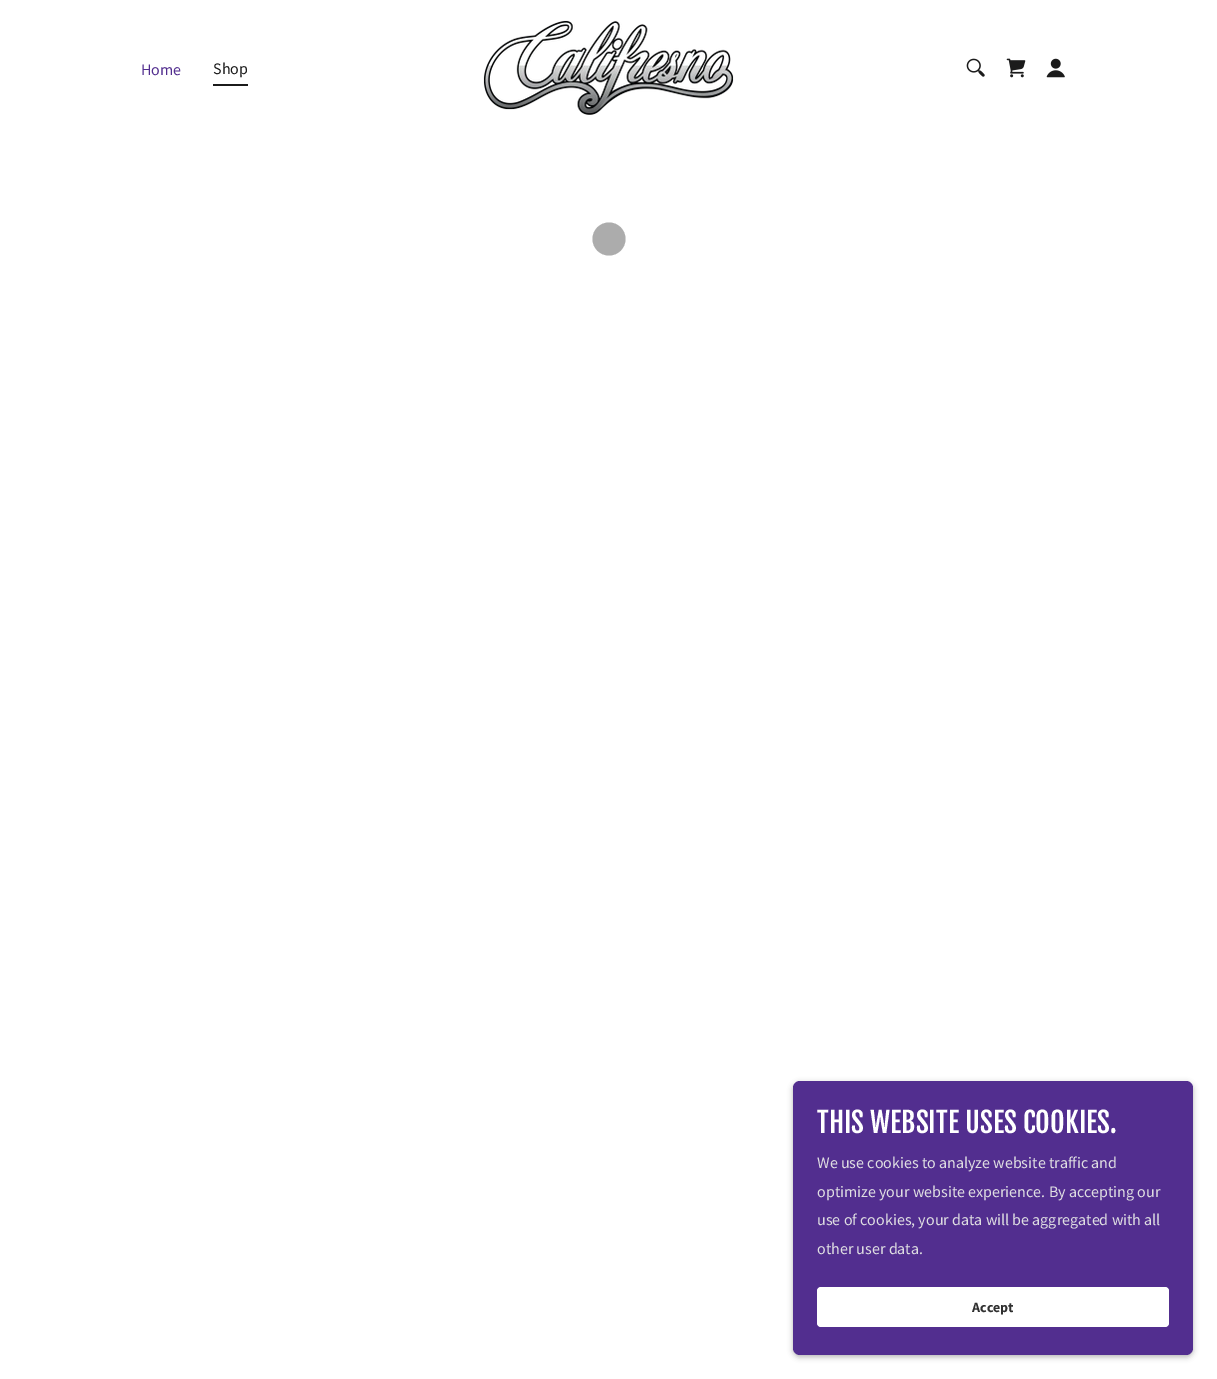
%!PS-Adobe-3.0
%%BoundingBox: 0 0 1217 1379
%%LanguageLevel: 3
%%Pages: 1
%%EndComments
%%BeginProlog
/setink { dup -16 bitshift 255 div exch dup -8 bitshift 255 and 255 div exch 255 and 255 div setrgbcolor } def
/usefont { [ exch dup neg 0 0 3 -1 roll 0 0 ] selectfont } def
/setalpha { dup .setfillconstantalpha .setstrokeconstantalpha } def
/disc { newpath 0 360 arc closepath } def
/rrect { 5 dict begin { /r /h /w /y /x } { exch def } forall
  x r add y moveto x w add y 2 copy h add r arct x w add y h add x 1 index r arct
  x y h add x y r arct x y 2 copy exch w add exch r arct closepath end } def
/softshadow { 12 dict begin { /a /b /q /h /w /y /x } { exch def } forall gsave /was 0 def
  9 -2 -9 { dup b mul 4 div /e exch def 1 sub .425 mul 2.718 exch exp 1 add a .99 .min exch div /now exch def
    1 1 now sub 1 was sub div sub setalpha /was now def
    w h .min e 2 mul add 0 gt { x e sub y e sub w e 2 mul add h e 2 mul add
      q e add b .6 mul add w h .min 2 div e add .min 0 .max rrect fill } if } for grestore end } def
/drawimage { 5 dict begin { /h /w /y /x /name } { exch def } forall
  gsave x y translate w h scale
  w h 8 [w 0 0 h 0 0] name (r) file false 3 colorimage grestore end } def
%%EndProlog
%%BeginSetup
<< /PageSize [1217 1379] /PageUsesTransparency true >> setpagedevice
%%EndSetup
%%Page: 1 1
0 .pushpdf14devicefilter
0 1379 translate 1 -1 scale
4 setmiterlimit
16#FFFFFF setink
0 0 1217 1379 rectfill
/SourceSansPro-Regular 16 usefont
16#522E8F setink
141 75 moveto (Home) show
16#1B1B1B setink
213 84 35 2 rectfill
213 74 moveto (Shop) show
(img1.raw) 483 20 251 95 drawimage
(img2.raw) 966 58 19 19 drawimage
(img3.raw) 1006 58 20 20 drawimage
(img4.raw) 1046 58 19 20 drawimage
16#ACACAC setink
609 239 16.5 disc fill
16#000000 setink
793 1083 400 274 7 3 0.3 softshadow
16#522E8F setink
793 1081 400 274 7 rrect fill
/FjallaOne-Regular 28 usefont
16#FFFFFF setink
817 1133 moveto (THIS WEBSITE USES COOKIES.) show
/SourceSansPro-Regular 16 usefont
16#DFDEE2 setink
[
    [(We use cookies to analyze website traffic and) 817 1168]
    [(optimize your website experience. By accepting our) 817 1197]
    [(use of cookies, your data will be aggregated with all) 817 1225]
    [(other user data.) 817 1254]
] { aload pop moveto show } forall
16#FFFFFF setink
817 1287 352 40 4 rrect fill
/SourceSansPro-Bold 14 usefont
16#303030 setink
972 1312 moveto (Accept) show
.poppdf14devicefilter showpage
%%EOF
